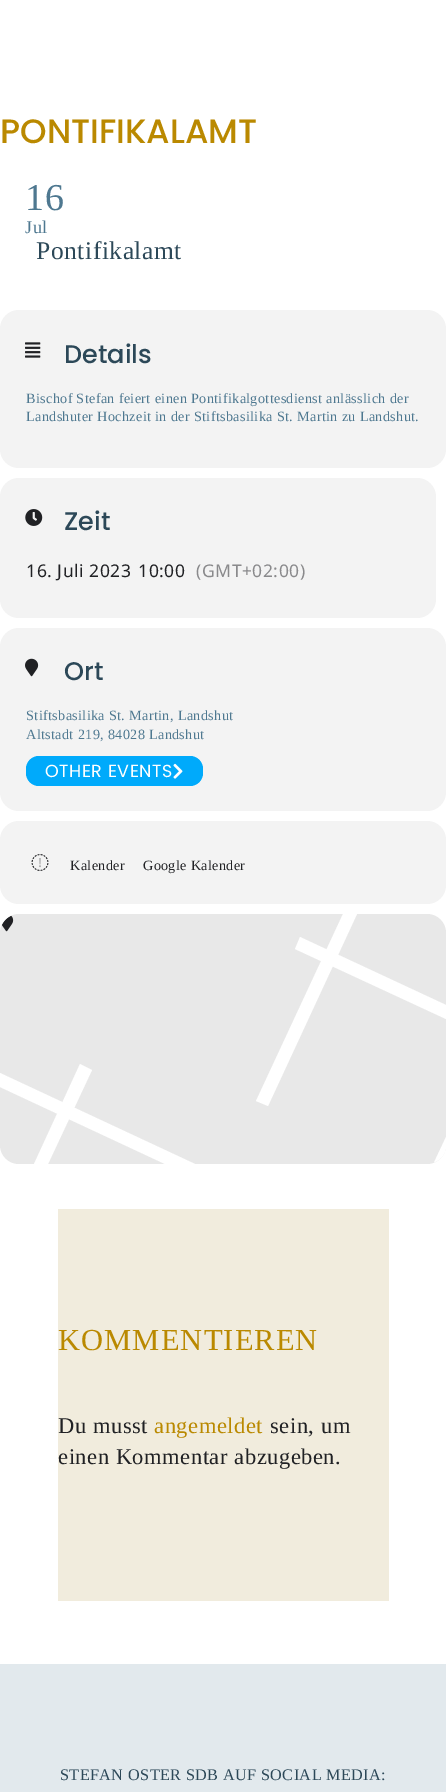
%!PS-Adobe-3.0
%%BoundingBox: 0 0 446 1792
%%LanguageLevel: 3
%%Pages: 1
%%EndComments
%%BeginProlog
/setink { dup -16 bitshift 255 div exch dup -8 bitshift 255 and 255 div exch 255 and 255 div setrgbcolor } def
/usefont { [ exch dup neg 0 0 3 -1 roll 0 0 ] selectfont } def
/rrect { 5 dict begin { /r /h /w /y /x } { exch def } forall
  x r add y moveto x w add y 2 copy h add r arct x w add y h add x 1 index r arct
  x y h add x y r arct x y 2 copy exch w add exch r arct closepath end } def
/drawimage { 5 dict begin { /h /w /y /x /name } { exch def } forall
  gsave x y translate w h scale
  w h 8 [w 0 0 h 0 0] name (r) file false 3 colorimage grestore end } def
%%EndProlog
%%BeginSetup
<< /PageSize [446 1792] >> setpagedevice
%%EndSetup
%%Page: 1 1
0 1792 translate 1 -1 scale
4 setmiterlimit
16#FFFFFF setink
0 0 446 1792 rectfill
/Poppins-Medium 33.75 usefont
16#BA8900 setink
0 143 moveto (PONTIFIKALAMT) show
/LiberationSerif-Regular 38 usefont
16#4E7890 setink
25 210 moveto 0.55 0 (16) ashow
/LiberationSerif-Regular 18 usefont
25 233 moveto 0.55 0 (Jul) ashow
/LiberationSerif-Regular 25.5 usefont
16#2C4858 setink
36 259 moveto 0.55 0 (Pontifikalamt) ashow
16#F3F3F3 setink
0 310 446 158 19 rrect fill
(img1.raw) 25 342 16 16 drawimage
/Poppins-Medium 25.5 usefont
16#2C4858 setink
64 363 moveto (Details) show
/LiberationSerif-Regular 14.2 usefont
16#4E7890 setink
26 403 moveto 0.35 0 (Bischof Stefan feiert einen Pontifikalgottesdienst anlässlich der) ashow
26 421 moveto 0.35 0 (Landshuter Hochzeit in der Stiftsbasilika St. Martin zu Landshut.) ashow
16#F3F3F3 setink
0 478 436 140 19 rrect fill
(img2.raw) 25 509 18 17 drawimage
/Poppins-Medium 25.5 usefont
16#2C4858 setink
64 530 moveto (Zeit) show
/NotoSans-Regular 17.5 usefont
16#202124 setink
26 577 moveto 0.55 0 (16. Juli 2023) ashow
138 577 moveto 0.55 0 (10:00) ashow
16#8A8A8C setink
196 577 moveto 0.55 0 (\(GMT+02:00\)) ashow
16#F3F3F3 setink
0 628 446 183 19 rrect fill
(img3.raw) 25 658 14 19 drawimage
/Poppins-Medium 25.5 usefont
16#2C4858 setink
64 680 moveto (Ort) show
/LiberationSerif-Regular 14.2 usefont
16#4E7890 setink
26 720 moveto 0.35 0 (Stiftsbasilika St. Martin, Landshut) ashow
26 739 moveto 0.35 0 (Altstadt 219, 84028 Landshut) ashow
16#00AAFB setink
26 756 177 30 13 rrect fill
/Poppins-Regular 17.5 usefont
16#FFFFFF setink
45 777 moveto 0.55 0 (OTHER EVENTS) ashow
(img4.raw) 173 763 10 16 drawimage
16#F3F3F3 setink
0 821 446 83 19 rrect fill
(img5.raw) 31 854 18 17 drawimage
/LiberationSerif-Regular 14.2 usefont
16#202124 setink
70 870 moveto 0.35 0 (Kalender) ashow
143 870 moveto 0.35 0 (Google Kalender) ashow
16#E8E8E8 setink
0 914 446 250 19 rrect fill
16#FFFFFF setink
300 937 moveto 295 949 lineto 446 1019 lineto 446 1005 lineto closepath fill
357 914 moveto 343 914 lineto 256 1101 lineto 268 1106 lineto closepath fill
92 1070 moveto 80 1064 lineto 34 1164 lineto 48 1164 lineto closepath fill
0 1087 moveto 165 1164 lineto 195 1164 lineto 0 1073 lineto closepath fill
434 1162.5 moveto 440.5 1160 445 1154.5 446 1148 curveto 446 1137 lineto closepath fill
(img6.raw) 2 915 12 17 drawimage
16#F1ECDD setink
58 1209 331 392 rectfill
/LiberationSerif-Regular 30.5 usefont
16#BA8900 setink
58 1350 moveto 1.1 0 (KOMMENTIEREN) ashow
/LiberationSerif-Regular 22.5 usefont
16#202124 setink
58 1433 moveto 0.55 0 (Du musst) ashow
16#BA8900 setink
154 1433 moveto 0.55 0 (angemeldet) ashow
16#202124 setink
270 1433 moveto 0.55 0 (sein, um) ashow
58 1464 moveto 0.55 0 (einen Kommentar abzugeben.) ashow
16#E2E9ED setink
0 1664 446 128 rectfill
/LiberationSerif-Regular 16.2 usefont
16#2C4858 setink
60 1780 moveto 0.4 0 (STEFAN OSTER SDB AUF SOCIAL MEDIA:) ashow
showpage
%%EOF
